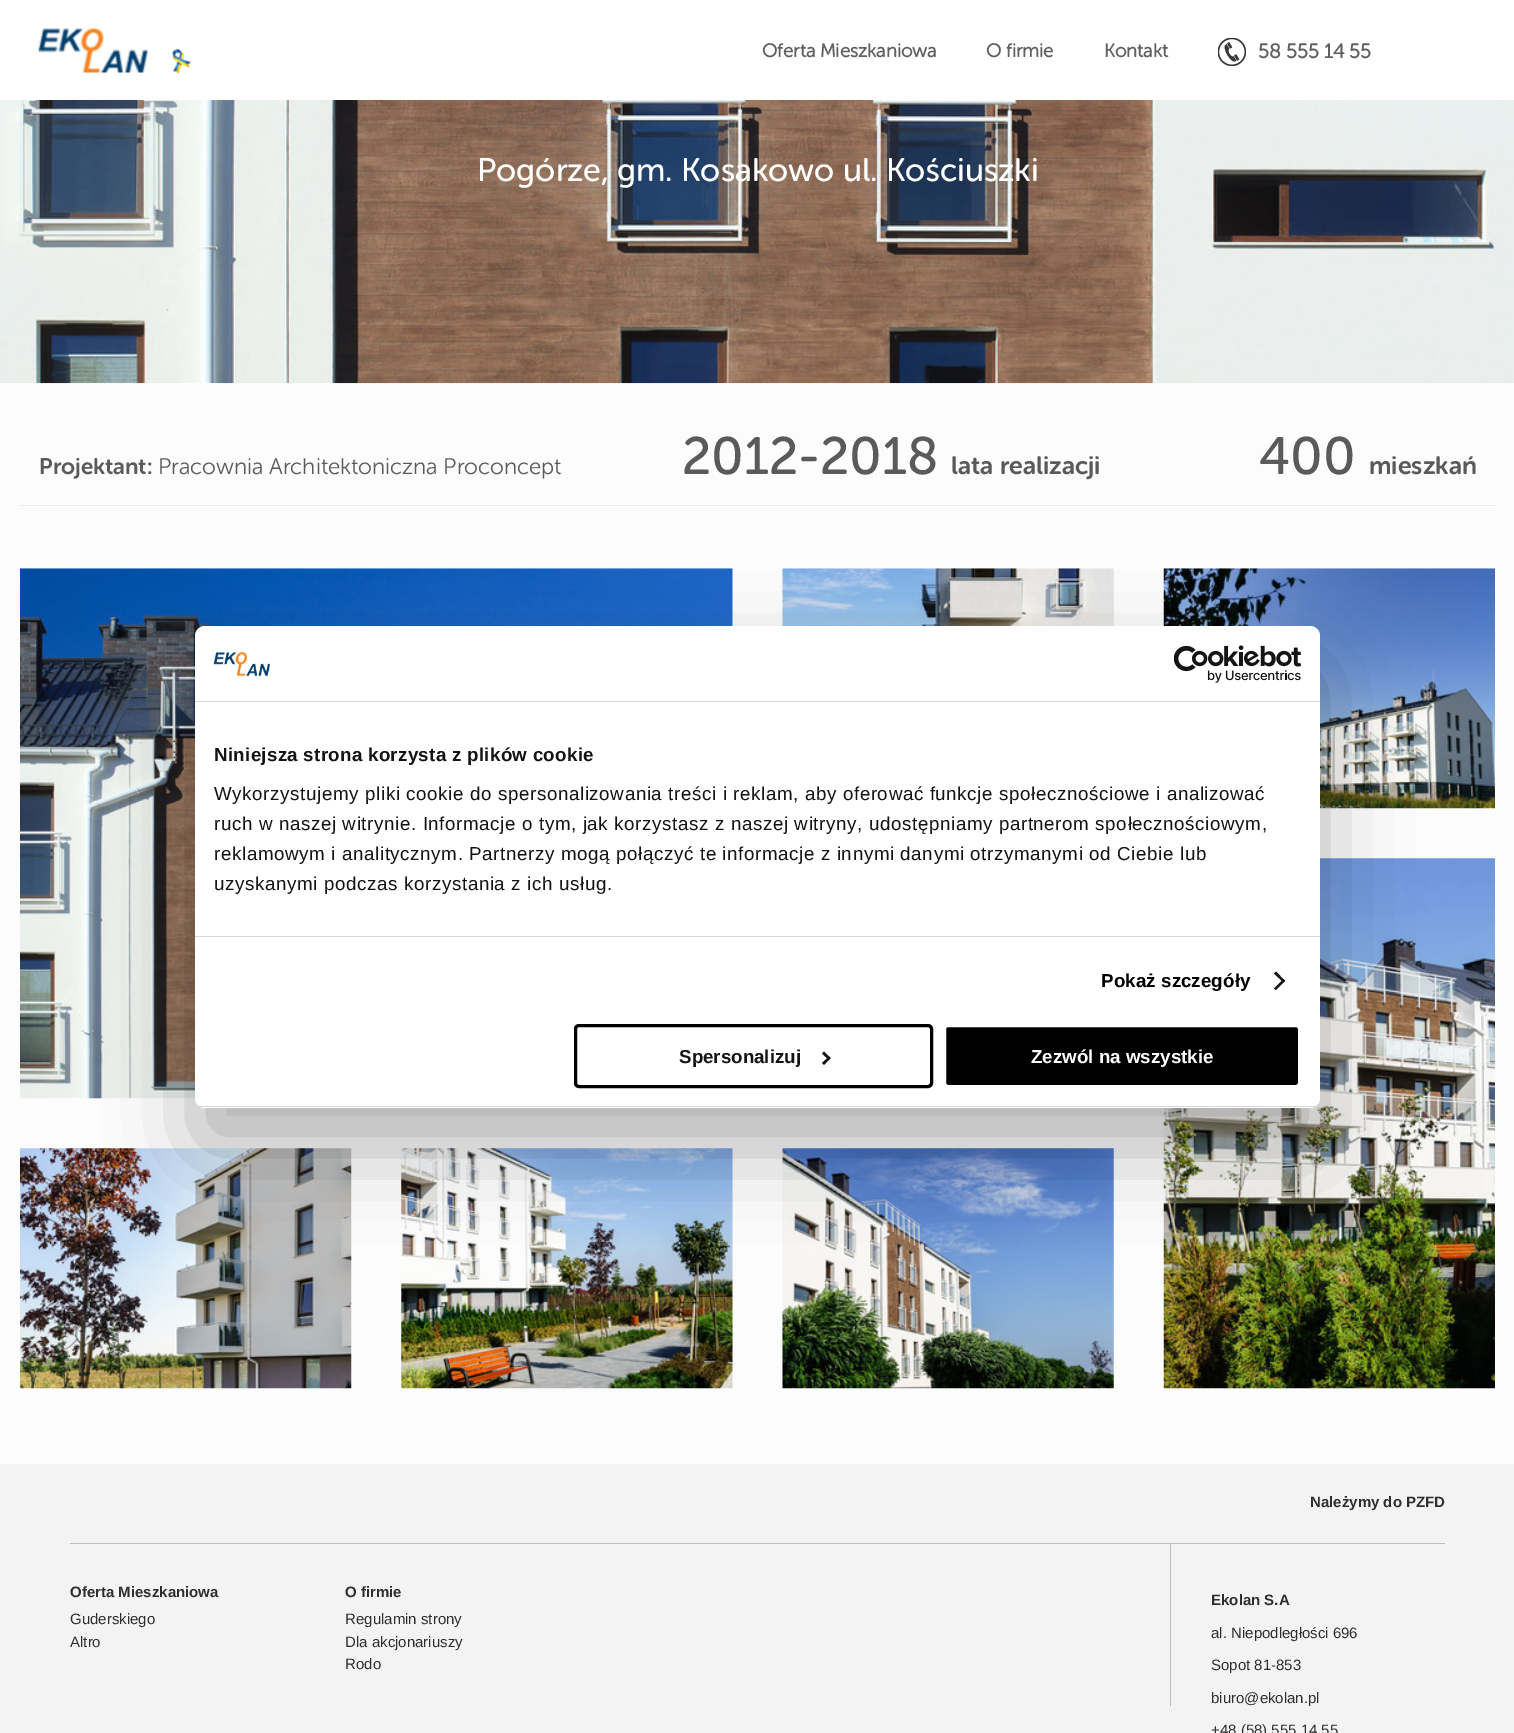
%!PS-Adobe-3.0
%%BoundingBox: 0 0 1514 1733
%%LanguageLevel: 3
%%Pages: 1
%%EndComments
%%BeginProlog
/setink { dup -16 bitshift 255 div exch dup -8 bitshift 255 and 255 div exch 255 and 255 div setrgbcolor } def
/usefont { [ exch dup neg 0 0 3 -1 roll 0 0 ] selectfont } def
/setalpha { dup .setfillconstantalpha .setstrokeconstantalpha } def
/rrect { 5 dict begin { /r /h /w /y /x } { exch def } forall
  x r add y moveto x w add y 2 copy h add r arct x w add y h add x 1 index r arct
  x y h add x y r arct x y 2 copy exch w add exch r arct closepath end } def
/softshadow { 12 dict begin { /a /b /q /h /w /y /x } { exch def } forall gsave /was 0 def
  9 -2 -9 { dup b mul 4 div /e exch def 1 sub .425 mul 2.718 exch exp 1 add a .99 .min exch div /now exch def
    1 1 now sub 1 was sub div sub setalpha /was now def
    w h .min e 2 mul add 0 gt { x e sub y e sub w e 2 mul add h e 2 mul add
      q e add b .6 mul add w h .min 2 div e add .min 0 .max rrect fill } if } for grestore end } def
/drawimage { 5 dict begin { /h /w /y /x /name } { exch def } forall
  gsave x y translate w h scale
  w h 8 [w 0 0 h 0 0] name (r) file false 3 colorimage grestore end } def
%%EndProlog
%%BeginSetup
<< /PageSize [1514 1733] /PageUsesTransparency true >> setpagedevice
%%EndSetup
%%Page: 1 1
0 .pushpdf14devicefilter
0 1733 translate 1 -1 scale
4 setmiterlimit
16#FCFCFC setink
0 0 1514 1733 rectfill
16#FFFFFF setink
0 0 1514 100 rectfill
(img1.raw) 38 28 110 45 drawimage
(img2.raw) 171 48 20 27 drawimage
/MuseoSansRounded-Bold 18.75 usefont
16#606060 setink
[
    [(Oferta Mieszkaniowa) 762 57]
    [(O firmie) 986 57]
    [(Kontakt) 1104 57]
] { aload pop moveto show } forall
(img3.raw) 1218 38 28 28 drawimage
/MuseoSansRounded-Bold 20 usefont
1258 58 moveto (58 555 14 55) show
(img4.raw) 0 100 1514 284 drawimage
/MuseoSansRounded-Regular 32.5 usefont
16#FFFFFF setink
477 181 moveto (Pogórze, gm. Kosakowo ul. Kościuszki) show
16#EBEBEB setink
20 505 1475 1 rectfill
/MuseoSansRounded-SemiBold 22.5 usefont
16#5A5A5A setink
39 474 moveto (Projektant:) show
/MuseoSansRounded-Light 22.5 usefont
158 474 moveto (Pracownia Architektoniczna Proconcept) show
/MuseoSansRounded-Regular 52.5 usefont
682 474 moveto (2012-2018) show
/MuseoSansRounded-SemiBold 25 usefont
951 474 moveto (lata realizacji) show
/MuseoSansRounded-Regular 52.5 usefont
1259 474 moveto (400) show
/MuseoSansRounded-SemiBold 25 usefont
1369 474 moveto (mieszkań) show
(img7.raw) 20 568 713 531 drawimage
(img8.raw) 782 568 332 58 drawimage
(img9.raw) 1163 568 332 241 drawimage
(img10.raw) 20 1148 332 241 drawimage
(img11.raw) 401 1148 332 241 drawimage
(img12.raw) 782 1148 332 241 drawimage
(img13.raw) 1163 858 332 531 drawimage
16#000000 setink
195 666 1125 482 10 42.5 0.3 softshadow
16#FFFFFF setink
195 626 1125 482 10 rrect fill
16#D6D6D6 setink
195 701 1125 1 rectfill
(img5.raw) 213 651 57 26 drawimage
(img6.raw) 1174 645 127 38 drawimage
195 936 1125 1 rectfill
/LiberationSans-Bold 18.75 usefont
16#141414 setink
214 761 moveto 0.3 0 (Niniejsza strona korzysta z plików cookie) ashow
/LiberationSans-Regular 18.75 usefont
214 800 moveto 0.62 0 (Wykorzystujemy pliki cookie do spersonalizowania treści i reklam, aby oferować funkcje społecznościowe i analizować) ashow
214 830 moveto 0.62 0 (ruch w naszej witrynie. Informacje o tym, jak korzystasz z naszej witryny, udostępniamy partnerom społecznościowym,) ashow
214 860 moveto 0.62 0 (reklamowym i analitycznym. Partnerzy mogą połączyć te informacje z innymi danymi otrzymanymi od Ciebie lub) ashow
214 890 moveto 0.62 0 (uzyskanymi podczas korzystania z ich usług.) ashow
/LiberationSans-Bold 18.75 usefont
16#000000 setink
1101 987 moveto 0.1 0 (Pokaż szczegóły) ashow
16#141414 setink
1276 971.5 moveto 1285 981 lineto 1283.5 982.5 lineto 1274 973.5 lineto closepath fill
1283.5 979 moveto 1285 981 lineto 1276 990 lineto 1274 988.5 lineto closepath fill
gsave
195 626 1125 482 10 rrect clip newpath
16#D6D6D6 setink
195 1106 1125 1 rectfill
grestore
16#000000 setink
3 setlinewidth
575.5 1025.5 356 61 3.5 rrect stroke
16#141414 setink
679 1063 moveto (Spersonalizuj) show
824 1051.5 moveto 830.5 1058 lineto 829 1060 lineto 822 1053.5 lineto closepath fill
829 1056.5 moveto 830.5 1058 lineto 824 1065 lineto 822 1063 lineto closepath fill
16#000000 setink
944.5 1025.5 355 61 3.5 rrect gsave fill grestore
16#FFFFFF setink
stroke
1031 1063 moveto (Zezwól na wszystkie) show
16#F3F3F3 setink
0 1464 1514 269 rectfill
16#BCBCBC setink
70 1543 1375 1 rectfill
/LiberationSans-Bold 15 usefont
16#2E2E2E setink
1310 1507 moveto (Należymy do PZFD) show
16#BCBCBC setink
1170 1544 1 162 rectfill
16#2E2E2E setink
70 1597 moveto (Oferta Mieszkaniowa) show
/LiberationSans-Regular 15 usefont
70 1624 moveto (Guderskiego) show
70 1647 moveto (Altro) show
/LiberationSans-Bold 15 usefont
345 1597 moveto (O firmie) show
/LiberationSans-Regular 15 usefont
[
    [(Regulamin strony) 345 1624]
    [(Dla akcjonariuszy) 345 1647]
    [(Rodo) 345 1669]
] { aload pop moveto show } forall
/LiberationSans-Bold 15 usefont
1211 1605 moveto (Ekolan S.A) show
/LiberationSans-Regular 15 usefont
[
    [(al. Niepodległości 696) 1211 1638]
    [(Sopot 81-853) 1211 1670]
    [(biuro@ekolan.pl) 1211 1703]
    [(+48 \(58\) 555 14 55) 1211 1735]
] { aload pop moveto show } forall
.poppdf14devicefilter showpage
%%EOF
